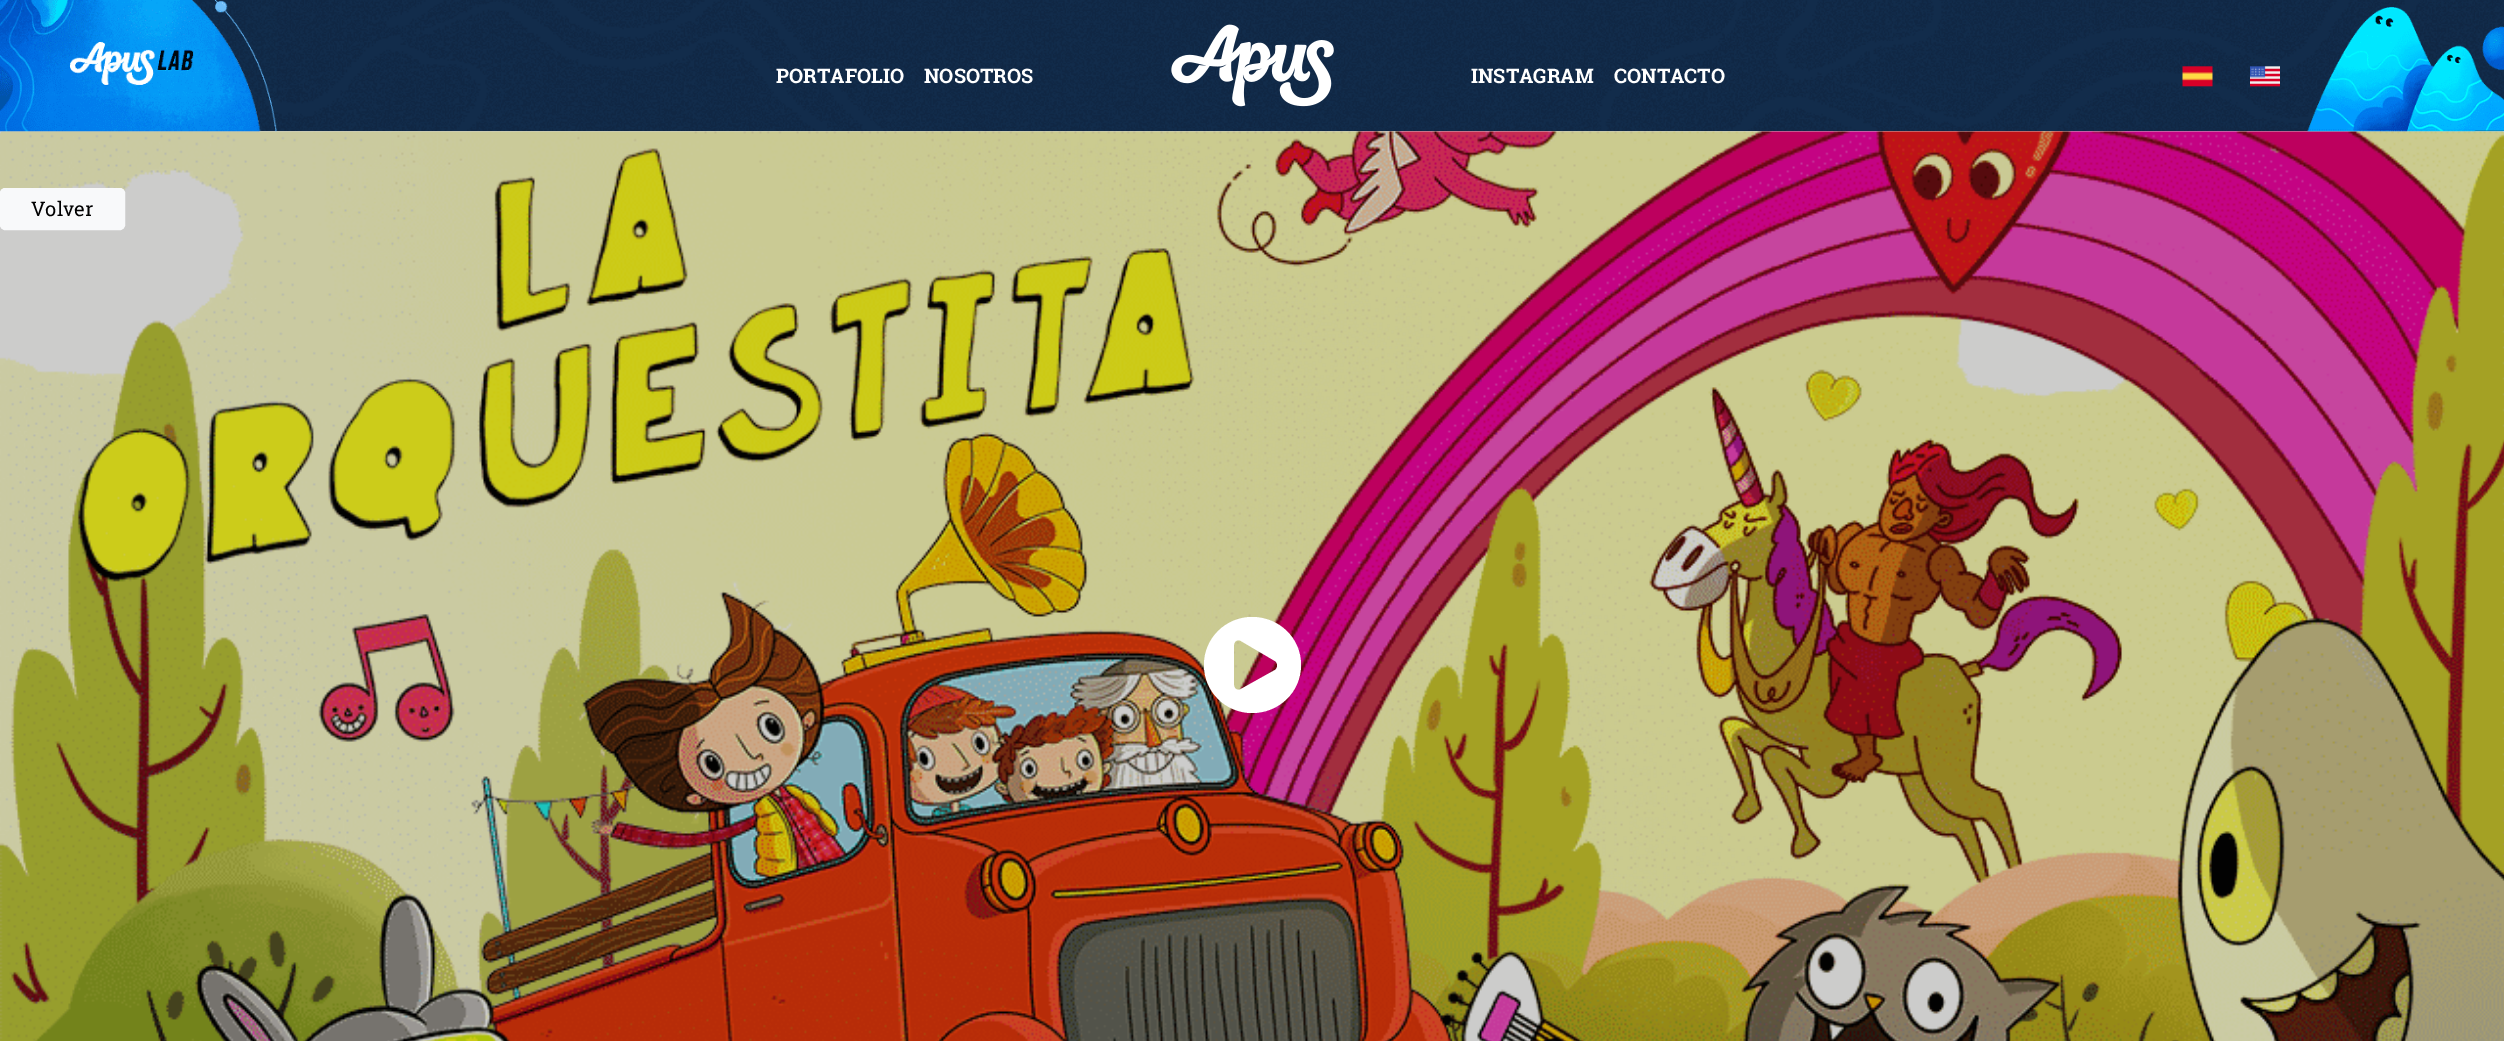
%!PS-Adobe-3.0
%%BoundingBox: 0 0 2504 1041
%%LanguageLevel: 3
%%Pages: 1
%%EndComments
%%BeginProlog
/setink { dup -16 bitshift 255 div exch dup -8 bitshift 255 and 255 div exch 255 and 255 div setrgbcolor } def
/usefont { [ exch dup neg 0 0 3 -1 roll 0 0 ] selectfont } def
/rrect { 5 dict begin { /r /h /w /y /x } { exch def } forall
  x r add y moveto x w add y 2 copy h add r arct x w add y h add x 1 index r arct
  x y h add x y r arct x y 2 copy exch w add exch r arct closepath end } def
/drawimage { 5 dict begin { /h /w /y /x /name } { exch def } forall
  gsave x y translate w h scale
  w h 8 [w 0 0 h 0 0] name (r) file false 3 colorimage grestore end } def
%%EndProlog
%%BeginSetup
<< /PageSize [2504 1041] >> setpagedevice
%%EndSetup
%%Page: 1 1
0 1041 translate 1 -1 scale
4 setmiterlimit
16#FFFFFF setink
0 0 2504 1041 rectfill
(img1.raw) 0 0 2504 131 drawimage
16#CCCCCC setink
0 131 2504 4 rectfill
(img7.raw) 0 131 2504 910 drawimage
(img2.raw) 0 0 277 132 drawimage
/RobotoSlab-Bold 20 usefont
16#FFFFFF setink
776 83 moveto (PORTAFOLIO) show
924 83 moveto (NOSOTROS) show
(img3.raw) 1171 24 163 83 drawimage
1471 83 moveto (INSTAGRAM) show
1614 83 moveto (CONTACTO) show
(img4.raw) 2182 66 31 21 drawimage
(img5.raw) 2250 66 30 21 drawimage
(img6.raw) 2307 7 197 125 drawimage
1252 617 moveto 1226 617 1204 638 1204 665 curveto 1204 692 1226 713 1252 713 curveto 1279 713 1301 692 1301 665 curveto 1301 638 1279 617 1252 617 curveto closepath 1275 670 moveto 1241 689 lineto 1238 691 1234 689 1234 685 curveto 1234 645 lineto 1234 641 1238 639 1241 641 curveto 1275 661 lineto 1278 663 1278 668 1275 670 curveto closepath fill
16#F8F9FA setink
0.5 188.5 124 41 4.5 rrect gsave fill grestore
stroke
/RobotoSlab-Regular 20 usefont
16#000000 setink
31 216 moveto (Volver) show
showpage
%%EOF
